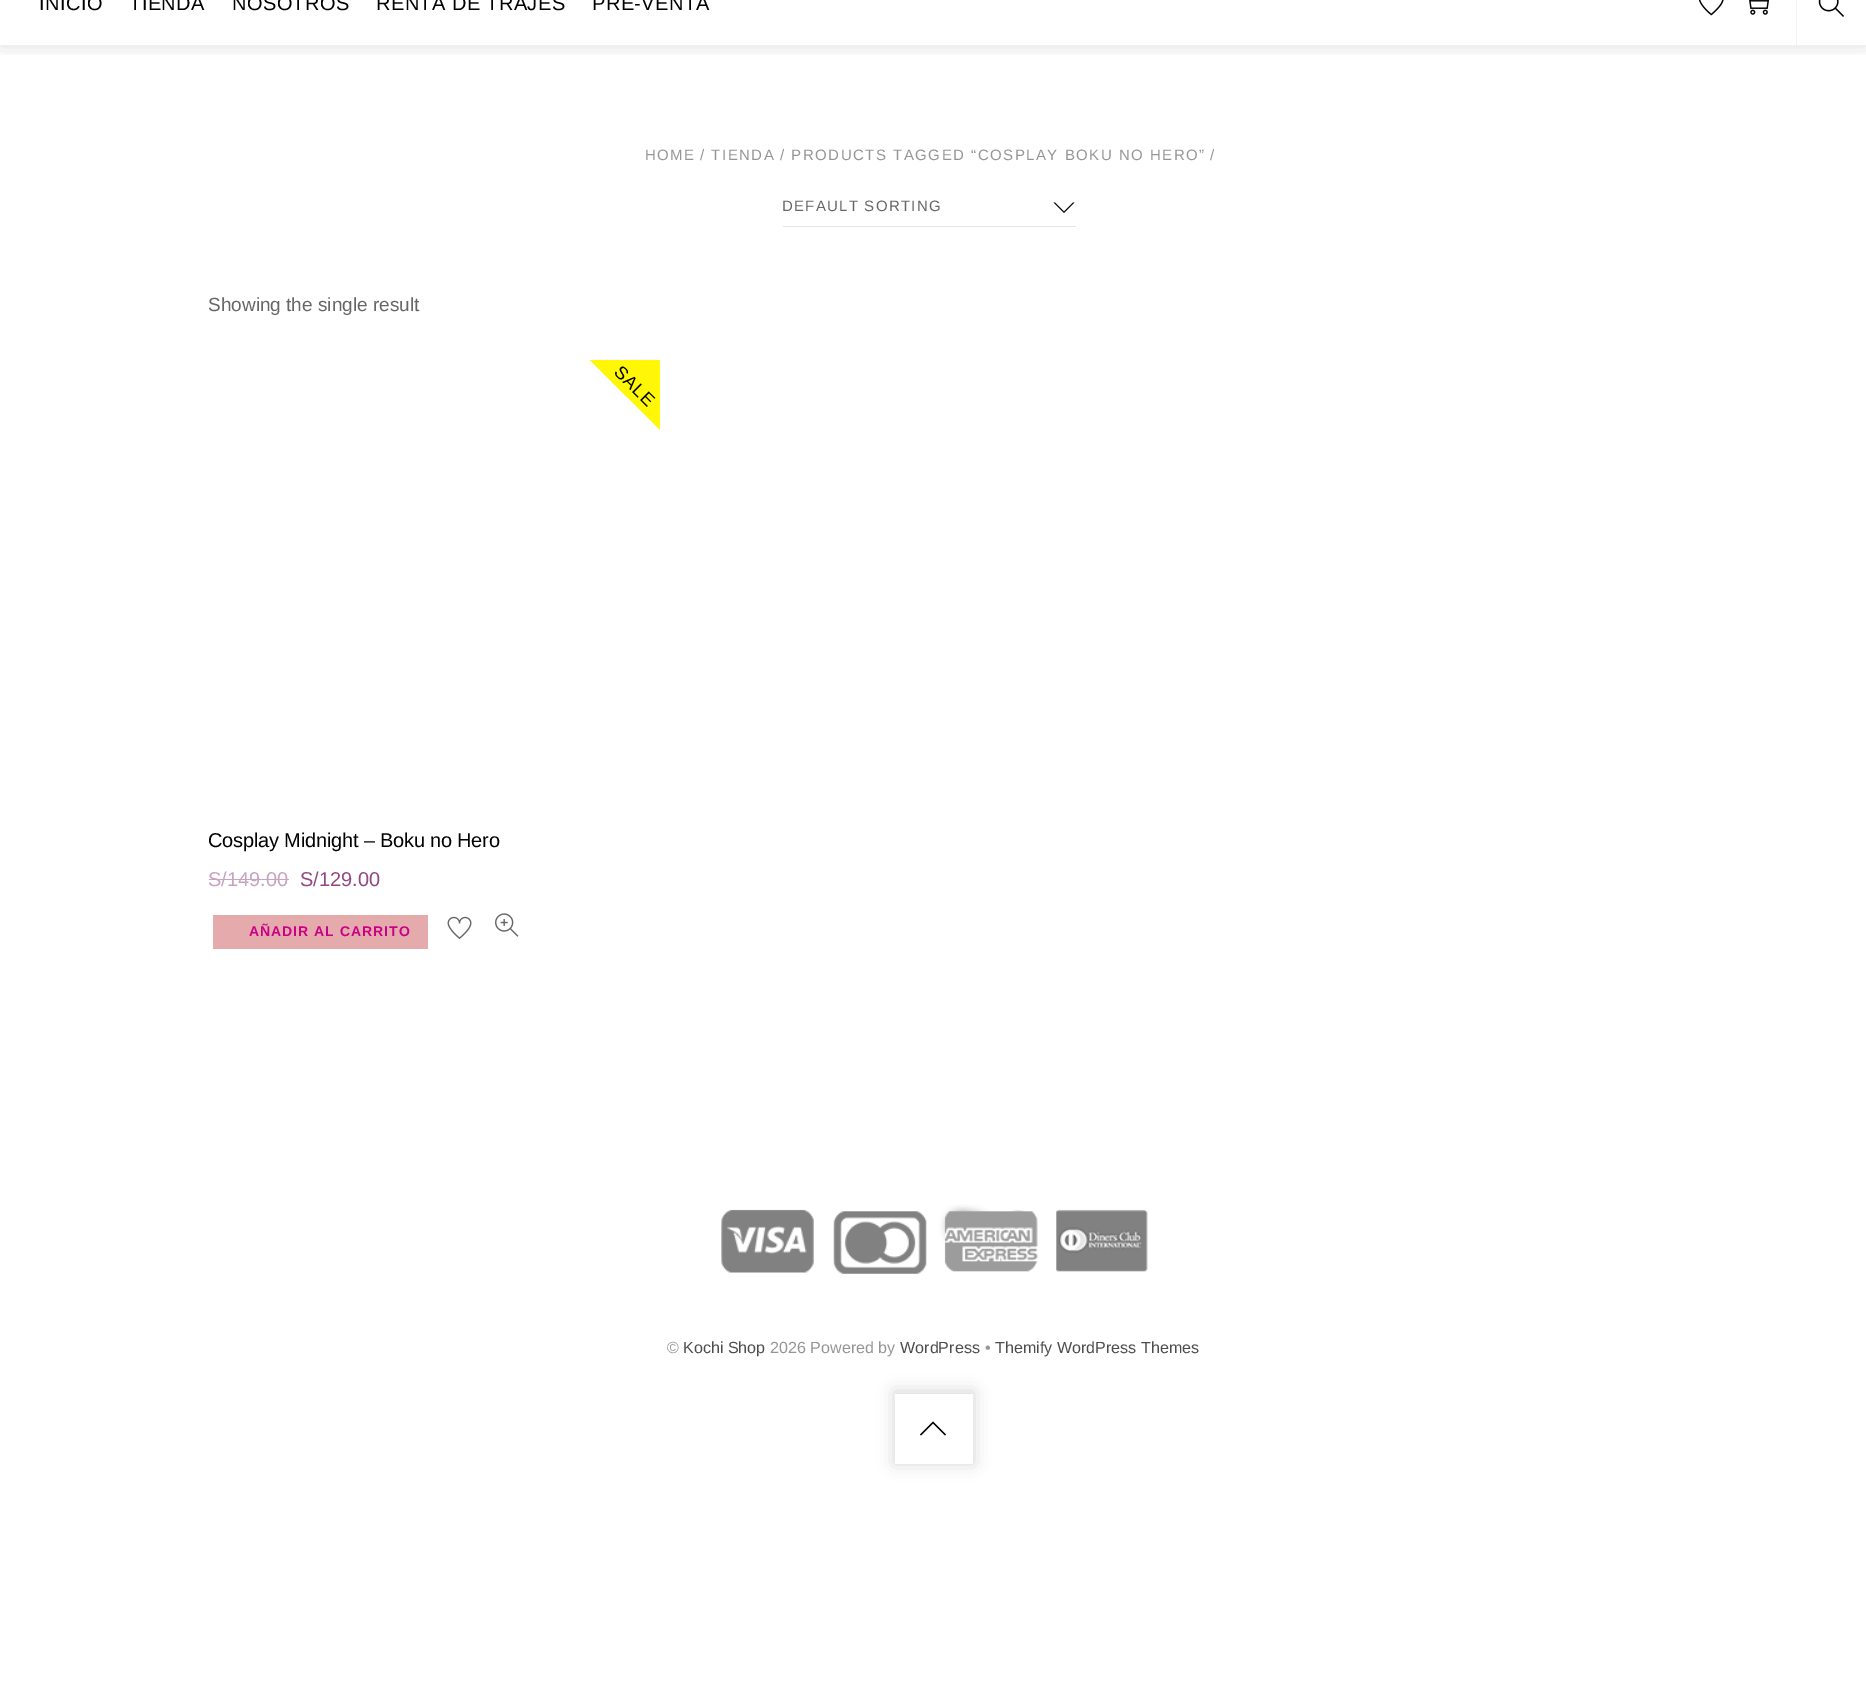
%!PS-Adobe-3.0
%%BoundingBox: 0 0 1866 1707
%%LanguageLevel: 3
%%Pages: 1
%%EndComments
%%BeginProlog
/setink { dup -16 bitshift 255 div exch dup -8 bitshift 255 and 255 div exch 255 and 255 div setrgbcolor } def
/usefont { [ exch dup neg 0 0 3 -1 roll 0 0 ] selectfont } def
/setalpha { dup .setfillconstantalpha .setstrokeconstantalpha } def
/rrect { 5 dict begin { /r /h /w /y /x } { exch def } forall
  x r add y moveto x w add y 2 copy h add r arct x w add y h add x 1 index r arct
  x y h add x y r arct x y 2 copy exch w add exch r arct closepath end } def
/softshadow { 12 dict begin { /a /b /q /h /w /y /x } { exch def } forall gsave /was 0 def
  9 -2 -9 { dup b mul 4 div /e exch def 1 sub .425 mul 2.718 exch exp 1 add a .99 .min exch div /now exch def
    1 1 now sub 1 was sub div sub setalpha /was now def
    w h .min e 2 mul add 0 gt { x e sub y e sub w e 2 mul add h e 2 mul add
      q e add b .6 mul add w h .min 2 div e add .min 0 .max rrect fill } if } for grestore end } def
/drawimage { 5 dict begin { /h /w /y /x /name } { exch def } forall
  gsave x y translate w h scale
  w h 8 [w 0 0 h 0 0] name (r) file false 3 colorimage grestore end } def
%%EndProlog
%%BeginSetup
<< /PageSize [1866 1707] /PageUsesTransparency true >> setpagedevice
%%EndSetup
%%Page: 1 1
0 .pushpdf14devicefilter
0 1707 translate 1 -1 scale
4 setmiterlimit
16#FFFFFF setink
0 0 1866 1707 rectfill
gsave
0 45 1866 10 rectclip
16#000000 setink
0 1 1866 45 0 9.5 0.12 softshadow
grestore
/LiberationSans-Regular 20 usefont
16#000000 setink
39 10 moveto 0.4 0 (INICIO) ashow
129 10 moveto 0.4 0 (TIENDA) ashow
232 10 moveto 0.4 0 (NOSOTROS) ashow
376 10 moveto 0.4 0 (RENTA DE TRAJES) ashow
592 10 moveto 0.4 0 (PRE-VENTA) ashow
(img1.raw) 1698 0 26 16 drawimage
(img2.raw) 1749 0 20 15 drawimage
16#F2F2F2 setink
1796 0 1 45 rectfill
(img3.raw) 1818 0 27 17 drawimage
/LiberationSans-Regular 15 usefont
16#959595 setink
645 160 moveto 1.5 0 (HOME) ashow
700 160 moveto 1.5 0 (/ TIENDA) ashow
780 160 moveto 1.5 0 (/ PRODUCTS TAGGED “COSPLAY BOKU NO HERO”) ashow
1210 160 moveto 1.5 0 (/) ashow
16#E6E6E6 setink
783 226 293 1 rectfill
16#666666 setink
782 211 moveto 1.25 0 (DEFAULT SORTING) ashow
16#000000 setink
1074.5 202.5 moveto 1064 213 lineto 1064 211.5 lineto 1073 202.5 lineto closepath 1064 213 moveto 1053.5 202.5 lineto 1055 202.5 lineto 1064 211.5 lineto closepath fill
/LiberationSans-Regular 19 usefont
16#666666 setink
208 311 moveto (Showing the single result) show
gsave
209 360 451 451 rectclip
16#FFF705 setink
628 316 moveto 705 393 lineto 664 434 lineto 587 357 lineto closepath fill
grestore
/LiberationSans-Regular 18 usefont
16#000000 setink
gsave 613 373 translate 45 rotate 0 0 moveto 1 0 (SALE) ashow grestore
/LiberationSans-Regular 20 usefont
208 847 moveto -0.2 0 (Cosplay Midnight – Boku no Hero) ashow
16#C8A4C1 setink
208 886 moveto (S/149.00) show
209 879 80 1 rectfill
16#914883 setink
300 886 moveto (S/129.00) show
16#E5AAAC setink
213 915 215 34 rectfill
/LiberationSans-Bold 14 usefont
16#CA0088 setink
249 936 moveto 1 0 (AÑADIR AL CARRITO) ashow
(img4.raw) 447 916 25 23 drawimage
(img5.raw) 495 913 24 24 drawimage
(img6.raw) 721 1204 427 70 drawimage
/LiberationSans-Regular 16.1 usefont
16#959595 setink
667 1353 moveto (©) show
16#4D4D4D setink
683 1353 moveto (Kochi Shop) show
16#959595 setink
770 1353 moveto (2026 Powered by) show
16#4D4D4D setink
900 1353 moveto (WordPress) show
16#959595 setink
985 1353 moveto (•) show
16#4D4D4D setink
995 1353 moveto (Themify WordPress Themes) show
gsave
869 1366 moveto 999 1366 lineto 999 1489 lineto 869 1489 lineto closepath 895 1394 moveto 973 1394 lineto 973 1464 lineto 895 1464 lineto closepath eoclip newpath
16#000000 setink
894 1391 80 73 0 8 0.15 softshadow
grestore
0.9 setalpha
16#FFFFFF setink
895 1394 78 70 rectfill
1 setalpha
16#000000 setink
946 1434.5 moveto 945 1435.5 lineto 933 1423.5 lineto 921 1435.5 lineto 920 1434.5 lineto 933 1421.5 lineto closepath fill
.poppdf14devicefilter showpage
%%EOF
